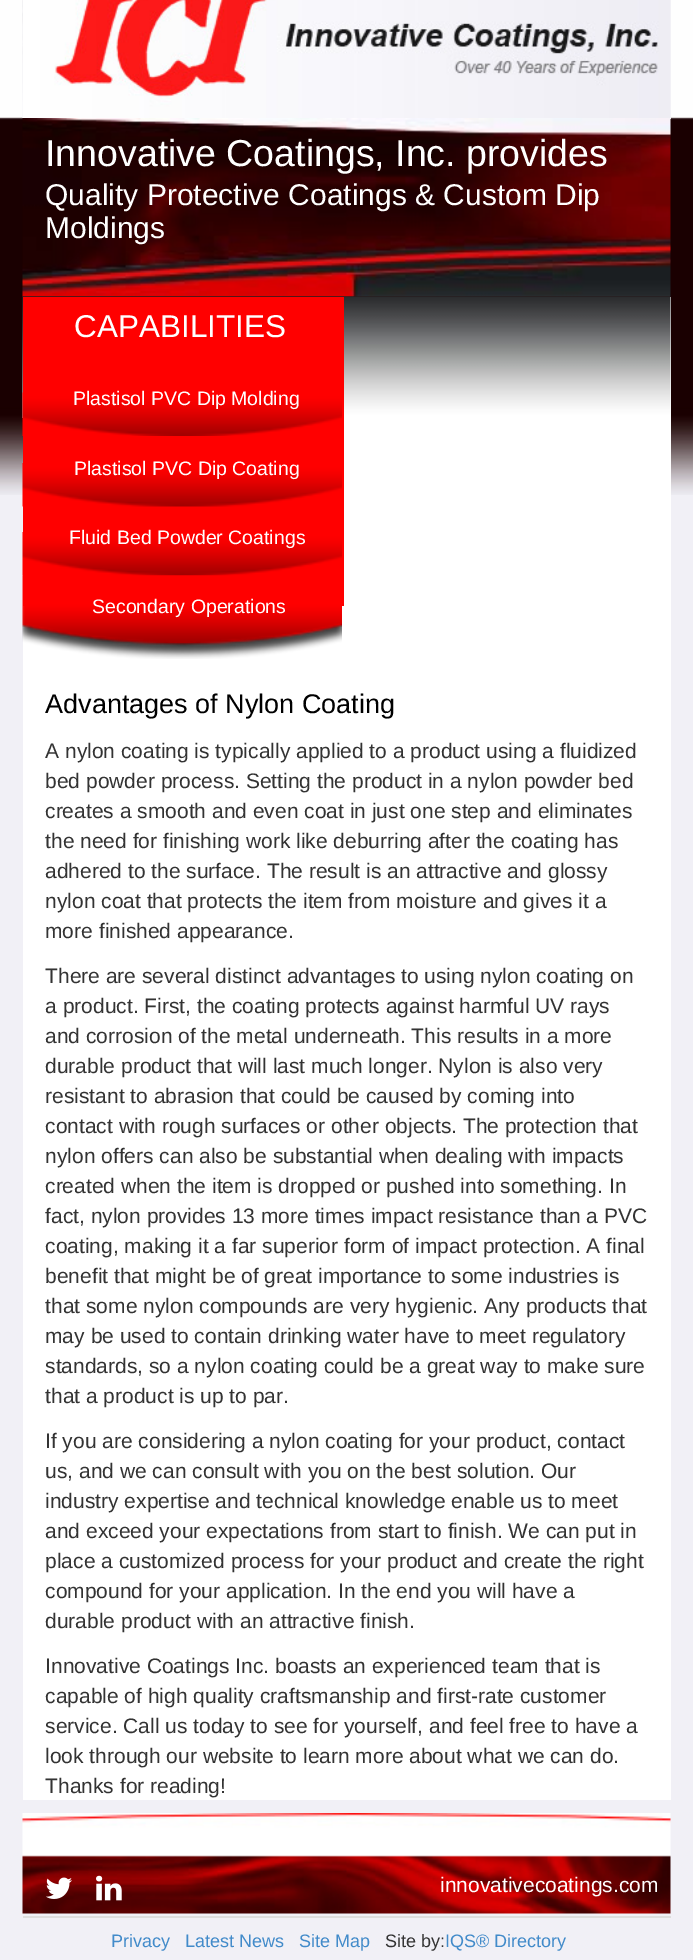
%!PS-Adobe-3.0
%%BoundingBox: 0 0 693 1960
%%LanguageLevel: 3
%%Pages: 1
%%EndComments
%%BeginProlog
/setink { dup -16 bitshift 255 div exch dup -8 bitshift 255 and 255 div exch 255 and 255 div setrgbcolor } def
/usefont { [ exch dup neg 0 0 3 -1 roll 0 0 ] selectfont } def
/drawimage { 5 dict begin { /h /w /y /x /name } { exch def } forall
  gsave x y translate w h scale
  w h 8 [w 0 0 h 0 0] name (r) file false 3 colorimage grestore end } def
%%EndProlog
%%BeginSetup
<< /PageSize [693 1960] >> setpagedevice
%%EndSetup
%%Page: 1 1
0 1960 translate 1 -1 scale
4 setmiterlimit
16#F1F0F6 setink
0 0 693 1960 rectfill
16#FEFEFE setink
0 0 693 117 rectfill
(img3.raw) 0 117 693 378 drawimage
16#F0EFF5 setink
670 0 1 119 rectfill
(img1.raw) 22 0 649 118 drawimage
(img2.raw) 22 0 649 118 drawimage
(img4.raw) 22 118 649 179 drawimage
/LiberationSans-Regular 37.5 usefont
16#FFFFFF setink
45 166 moveto (Innovative Coatings, Inc. provides) show
/LiberationSans-Regular 30 usefont
45 205 moveto (Quality Protective Coatings & Custom Dip) show
45 238 moveto (Moldings) show
23 297 648 1503 rectfill
(img5.raw) 22 296 649 122 drawimage
16#FF0000 setink
23 297 321 309 rectfill
/LiberationSans-Regular 31.5 usefont
16#FFFFFF setink
74 337 moveto (CAPABILITIES) show
(img6.raw) 22 392 320 44 drawimage
/LiberationSans-Regular 19.5 usefont
73 405 moveto (Plastisol PVC Dip Molding) show
(img7.raw) 22 463 320 44 drawimage
74 475 moveto (Plastisol PVC Dip Coating) show
(img8.raw) 22 532 320 44 drawimage
69 544 moveto (Fluid Bed Powder Coatings) show
(img9.raw) 22 575 320 84 drawimage
92 613 moveto (Secondary Operations) show
/LiberationSans-Regular 27 usefont
16#000000 setink
45 713 moveto (Advantages of Nylon Coating) show
/LiberationSans-Regular 21 usefont
16#333333 setink
[
    [(A nylon coating is typically applied to a product using a fluidized) 45 758]
    [(bed powder process. Setting the product in a nylon powder bed) 45 788]
    [(creates a smooth and even coat in just one step and eliminates) 45 818]
    [(the need for finishing work like deburring after the coating has) 45 848]
    [(adhered to the surface. The result is an attractive and glossy) 45 878]
    [(nylon coat that protects the item from moisture and gives it a) 45 908]
    [(more finished appearance.) 45 938]
    [(There are several distinct advantages to using nylon coating on) 45 983]
    [(a product. First, the coating protects against harmful UV rays) 45 1013]
    [(and corrosion of the metal underneath. This results in a more) 45 1043]
    [(durable product that will last much longer. Nylon is also very) 45 1073]
    [(resistant to abrasion that could be caused by coming into) 45 1103]
    [(contact with rough surfaces or other objects. The protection that) 45 1133]
    [(nylon offers can also be substantial when dealing with impacts) 45 1163]
    [(created when the item is dropped or pushed into something. In) 45 1193]
    [(fact, nylon provides 13 more times impact resistance than a PVC) 45 1223]
    [(coating, making it a far superior form of impact protection. A final) 45 1253]
    [(benefit that might be of great importance to some industries is) 45 1283]
    [(that some nylon compounds are very hygienic. Any products that) 45 1313]
    [(may be used to contain drinking water have to meet regulatory) 45 1343]
    [(standards, so a nylon coating could be a great way to make sure) 45 1373]
    [(that a product is up to par.) 45 1403]
    [(If you are considering a nylon coating for your product, contact) 45 1448]
    [(us, and we can consult with you on the best solution. Our) 45 1478]
    [(industry expertise and technical knowledge enable us to meet) 45 1508]
    [(and exceed your expectations from start to finish. We can put in) 45 1538]
    [(place a customized process for your product and create the right) 45 1568]
    [(compound for your application. In the end you will have a) 45 1598]
    [(durable product with an attractive finish.) 45 1628]
    [(Innovative Coatings Inc. boasts an experienced team that is) 45 1673]
    [(capable of high quality craftsmanship and first-rate customer) 45 1703]
    [(service. Call us today to see for yourself, and feel free to have a) 45 1733]
    [(look through our website to learn more about what we can do.) 45 1763]
    [(Thanks for reading!) 45 1793]
] { aload pop moveto show } forall
(img10.raw) 22 1813 649 101 drawimage
(img11.raw) 46 1877 26 22 drawimage
(img12.raw) 96 1875 26 26 drawimage
16#FFFFFF setink
440 1892 moveto (innovativecoatings.com) show
16#DDDDDD setink
23 1916 648 2 rectfill
/LiberationSans-Regular 18 usefont
16#428BCA setink
[
    [(Privacy) 111 1947]
    [(Latest News) 185 1947]
    [(Site Map) 299 1947]
] { aload pop moveto show } forall
16#333333 setink
385 1947 moveto (Site by:) show
16#428BCA setink
445 1947 moveto (IQS® Directory) show
showpage
%%EOF
